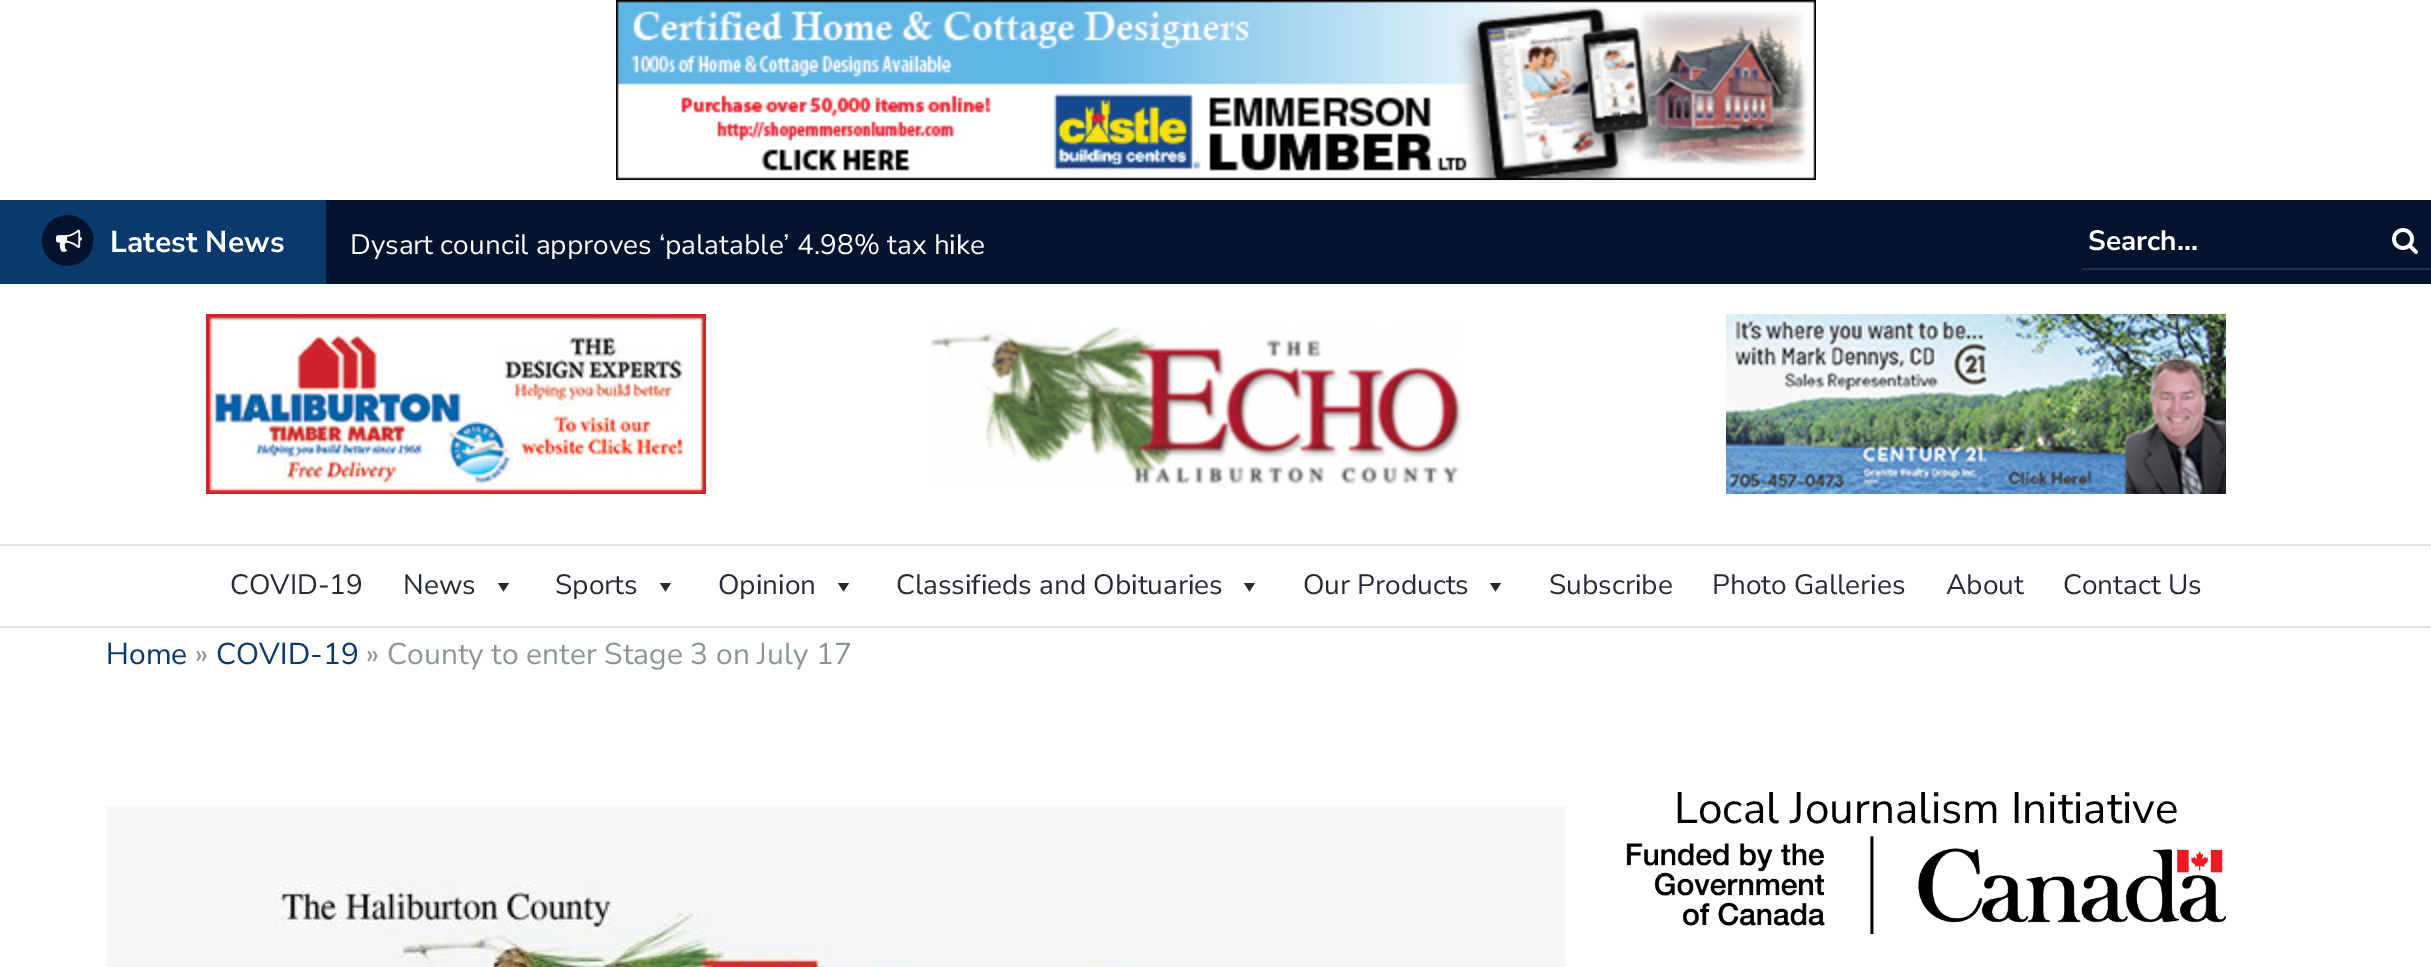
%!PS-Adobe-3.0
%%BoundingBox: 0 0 2431 967
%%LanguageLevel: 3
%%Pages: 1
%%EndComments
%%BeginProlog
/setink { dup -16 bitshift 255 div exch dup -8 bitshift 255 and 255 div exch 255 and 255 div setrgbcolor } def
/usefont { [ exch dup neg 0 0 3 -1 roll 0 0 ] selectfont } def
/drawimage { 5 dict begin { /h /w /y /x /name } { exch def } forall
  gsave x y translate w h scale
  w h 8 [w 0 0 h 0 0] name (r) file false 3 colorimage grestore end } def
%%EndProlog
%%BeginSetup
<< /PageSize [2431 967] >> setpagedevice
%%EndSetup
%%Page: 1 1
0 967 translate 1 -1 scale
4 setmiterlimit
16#FFFFFF setink
0 0 2431 967 rectfill
(img1.raw) 616 0 1200 180 drawimage
16#04132D setink
326 200 2105 84 rectfill
16#0A396D setink
0 200 326 84 rectfill
16#04132D setink
90 228 moveto 93 232 94 237 93 242 curveto 92 267 58 275 45 253 curveto 43 249 42 244 42 239 curveto 44 214 77 206 90 228 curveto closepath fill
(img2.raw) 56 229 26 23 drawimage
/NunitoSans-Bold 30 usefont
16#FFFFFF setink
110 252 moveto (Latest News) show
/NunitoSans-Regular 28 usefont
350 254 moveto (Dysart council approves ‘palatable’ 4.98% tax hike) show
16#202D44 setink
2082 268 349 2 rectfill
/NunitoSans-Bold 28 usefont
16#FFFFFF setink
2088 250 moveto (Search...) show
(img3.raw) 2392 228 26 26 drawimage
(img4.raw) 206 314 500 180 drawimage
(img5.raw) 930 326 533 159 drawimage
(img6.raw) 1726 314 500 180 drawimage
16#E1E1E1 setink
0 544 2431 2 rectfill
0 626 2431 2 rectfill
/NunitoSans-Regular 28 usefont
16#252A35 setink
230 594 moveto (COVID-19) show
403 594 moveto (News) show
509 583 moveto 503.5 591.5 lineto 498 583 lineto closepath fill
555 594 moveto (Sports) show
671 583 moveto 665.5 591.5 lineto 660 583 lineto closepath fill
718 594 moveto (Opinion) show
849 583 moveto 843.5 591.5 lineto 838 583 lineto closepath fill
896 594 moveto (Classifieds and Obituaries) show
1255 583 moveto 1249.5 591.5 lineto 1244 583 lineto closepath fill
1303 594 moveto (Our Products) show
1501 583 moveto 1495.5 591.5 lineto 1490 583 lineto closepath fill
[
    [(Subscribe) 1549 594]
    [(Photo Galleries) 1712 594]
    [(About) 1946 594]
    [(Contact Us) 2063 594]
] { aload pop moveto show } forall
/NunitoSans-Regular 30 usefont
16#0A396D setink
106 664 moveto (Home) show
16#8C9597 setink
195 664 moveto (») show
16#0A396D setink
216 664 moveto (COVID-19) show
16#8C9597 setink
366 664 moveto (» County to enter Stage 3 on July 17) show
(img7.raw) 106 806 1460 161 drawimage
/NunitoSans-Regular 44 usefont
16#000000 setink
1674 823 moveto (Local Journalism Initiative) show
(img8.raw) 1626 836 600 98 drawimage
showpage
%%EOF
